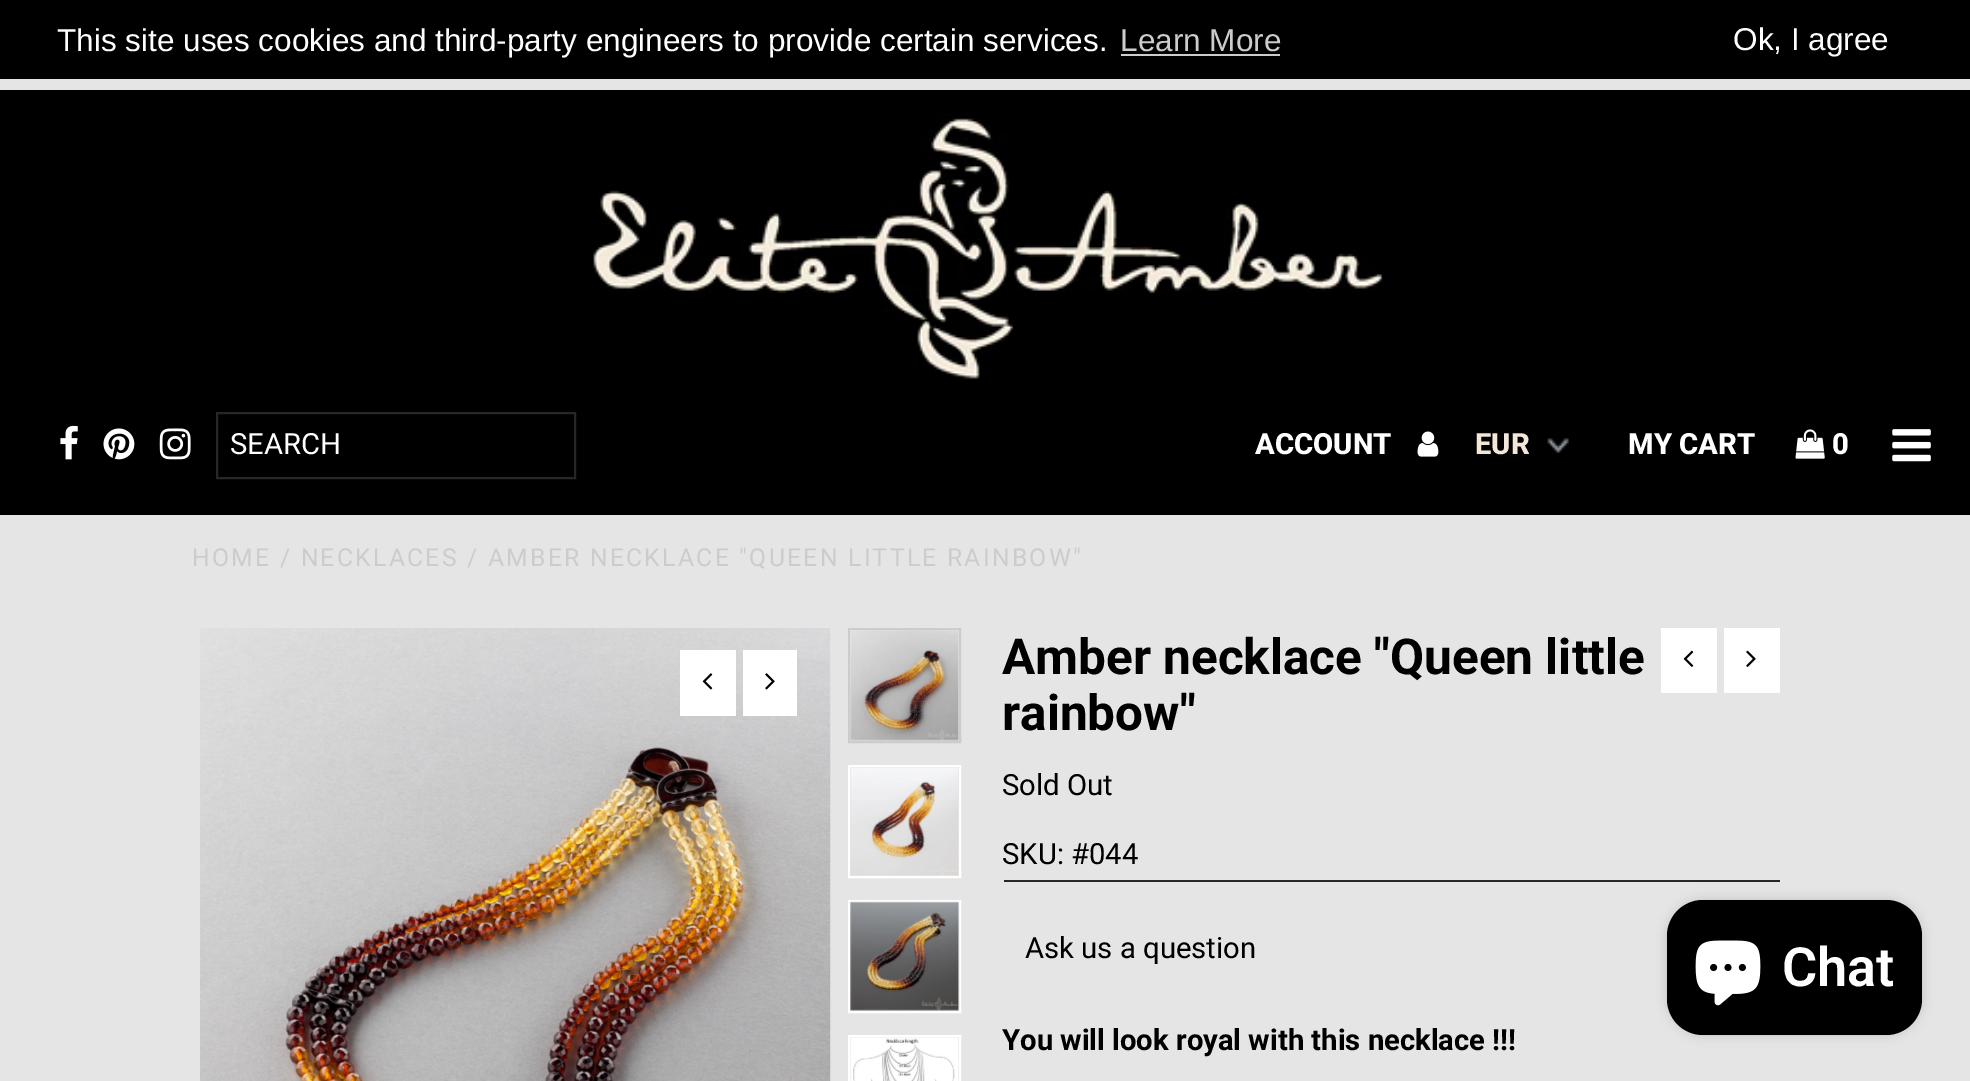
%!PS-Adobe-3.0
%%BoundingBox: 0 0 1970 1081
%%LanguageLevel: 3
%%Pages: 1
%%EndComments
%%BeginProlog
/setink { dup -16 bitshift 255 div exch dup -8 bitshift 255 and 255 div exch 255 and 255 div setrgbcolor } def
/usefont { [ exch dup neg 0 0 3 -1 roll 0 0 ] selectfont } def
/setalpha { dup .setfillconstantalpha .setstrokeconstantalpha } def
/rrect { 5 dict begin { /r /h /w /y /x } { exch def } forall
  x r add y moveto x w add y 2 copy h add r arct x w add y h add x 1 index r arct
  x y h add x y r arct x y 2 copy exch w add exch r arct closepath end } def
/softshadow { 12 dict begin { /a /b /q /h /w /y /x } { exch def } forall gsave /was 0 def
  9 -2 -9 { dup b mul 4 div /e exch def 1 sub .425 mul 2.718 exch exp 1 add a .99 .min exch div /now exch def
    1 1 now sub 1 was sub div sub setalpha /was now def
    w h .min e 2 mul add 0 gt { x e sub y e sub w e 2 mul add h e 2 mul add
      q e add b .6 mul add w h .min 2 div e add .min 0 .max rrect fill } if } for grestore end } def
/drawimage { 5 dict begin { /h /w /y /x /name } { exch def } forall
  gsave x y translate w h scale
  w h 8 [w 0 0 h 0 0] name (r) file false 3 colorimage grestore end } def
%%EndProlog
%%BeginSetup
<< /PageSize [1970 1081] /PageUsesTransparency true >> setpagedevice
%%EndSetup
%%Page: 1 1
0 .pushpdf14devicefilter
0 1081 translate 1 -1 scale
4 setmiterlimit
16#E5E5E5 setink
0 0 1970 1081 rectfill
16#000000 setink
0 0 1970 79 rectfill
/LiberationSans-Regular 31.5 usefont
16#FFFFFF setink
57 51 moveto (This site uses cookies and third-party engineers to provide certain services.) show
16#CCCCCC setink
1120 51 moveto (Learn More) show
1121 54 159 2 rectfill
16#FFFFFF setink
1733 50 moveto (Ok, I agree) show
16#000000 setink
0 90 1970 425 rectfill
(img1.raw) 593 113 795 267 drawimage
(img2.raw) 60 425 18 35 drawimage
(img3.raw) 103 428 32 32 drawimage
(img4.raw) 159 428 32 32 drawimage
16#272727 setink
2 setlinewidth
217 413 358 65 rectstroke
/Roboto-Regular 29.25 usefont
16#FFFFFF setink
230 454 moveto (SEARCH) show
/Roboto-ExtraBold 29.25 usefont
1255 454 moveto (ACCOUNT) show
(img5.raw) 1417 431 22 26 drawimage
(img6.raw) 1547 438 22 15 drawimage
16#F4E7D7 setink
1475 454 moveto (EUR) show
16#FFFFFF setink
1628 454 moveto (MY CART) show
(img7.raw) 1795 429 30 30 drawimage
1832 454 moveto (0) show
(img8.raw) 1892 429 39 33 drawimage
/Roboto-Regular 24.75 usefont
16#CCCCCC setink
192 566 moveto 2.25 0 (HOME / NECKLACES / AMBER NECKLACE "QUEEN LITTLE RAINBOW") ashow
(img9.raw) 200 628 631 453 drawimage
16#FFFFFF setink
680 650 56 66 rectfill
(img10.raw) 702 673 11 17 drawimage
743 650 54 66 rectfill
(img11.raw) 765 673 10 17 drawimage
16#CCCCCC setink
849 629 111 113 rectstroke
(img12.raw) 850 630 109 111 drawimage
16#FFFFFF setink
849 766 111 111 rectstroke
(img13.raw) 850 767 109 109 drawimage
849 901 111 111 rectstroke
(img14.raw) 850 901 110 110 drawimage
849 1036 111 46 rectstroke
(img15.raw) 850 1037 109 44 drawimage
/Roboto-Bold 49.5 usefont
16#000000 setink
1002 674 moveto (Amber necklace "Queen little) show
1002 730 moveto (rainbow") show
16#FFFFFF setink
1661 628 56 65 rectfill
(img16.raw) 1683 650 11 17 drawimage
1724 628 56 65 rectfill
(img17.raw) 1746 650 10 17 drawimage
/Roboto-Regular 29.25 usefont
16#000000 setink
1002 795 moveto (Sold Out) show
1002 864 moveto (SKU: #044) show
16#272727 setink
1004 880 776 2 rectfill
16#000000 setink
1025 958 moveto (Ask us a question) show
/Roboto-Bold 29.25 usefont
1002 1050 moveto (You will look royal with this necklace !!!) show
1667 900 255 135 36 5.5 0.15 softshadow
1667 900 255 135 36 rrect fill
(img18.raw) 1695 940 66 66 drawimage
/Roboto-SemiBold 54 usefont
16#FFFFFF setink
1782 986 moveto (Chat) show
.poppdf14devicefilter showpage
%%EOF
